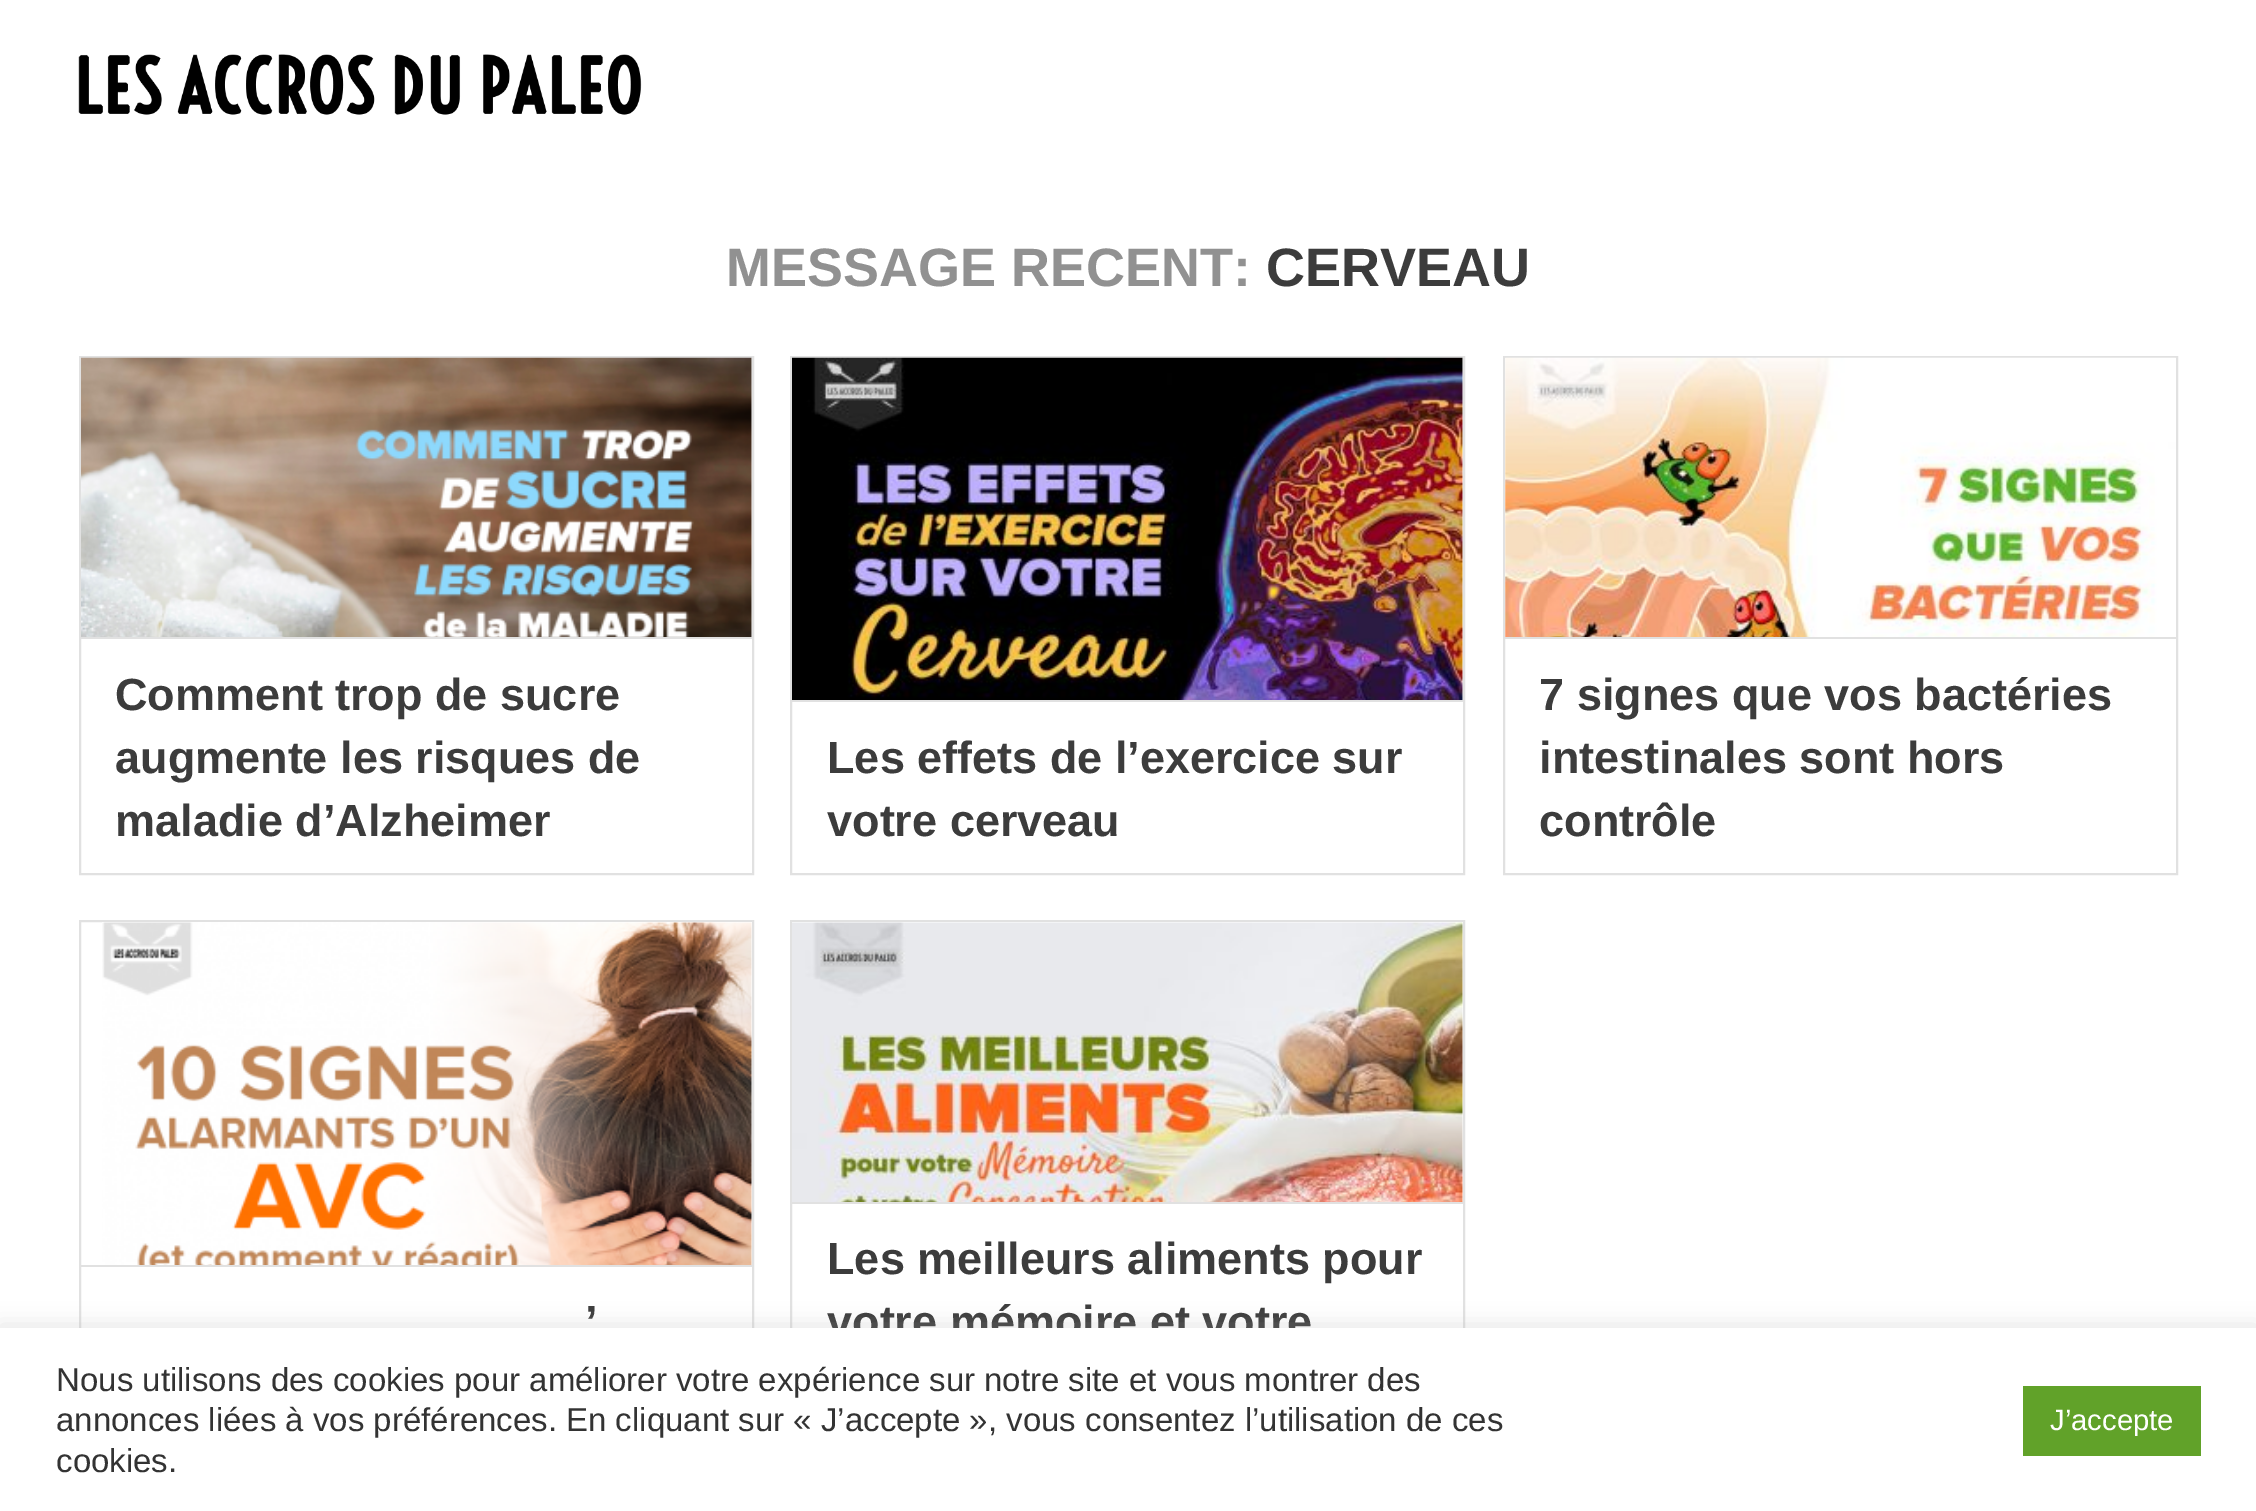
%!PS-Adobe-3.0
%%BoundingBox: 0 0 2256 1511
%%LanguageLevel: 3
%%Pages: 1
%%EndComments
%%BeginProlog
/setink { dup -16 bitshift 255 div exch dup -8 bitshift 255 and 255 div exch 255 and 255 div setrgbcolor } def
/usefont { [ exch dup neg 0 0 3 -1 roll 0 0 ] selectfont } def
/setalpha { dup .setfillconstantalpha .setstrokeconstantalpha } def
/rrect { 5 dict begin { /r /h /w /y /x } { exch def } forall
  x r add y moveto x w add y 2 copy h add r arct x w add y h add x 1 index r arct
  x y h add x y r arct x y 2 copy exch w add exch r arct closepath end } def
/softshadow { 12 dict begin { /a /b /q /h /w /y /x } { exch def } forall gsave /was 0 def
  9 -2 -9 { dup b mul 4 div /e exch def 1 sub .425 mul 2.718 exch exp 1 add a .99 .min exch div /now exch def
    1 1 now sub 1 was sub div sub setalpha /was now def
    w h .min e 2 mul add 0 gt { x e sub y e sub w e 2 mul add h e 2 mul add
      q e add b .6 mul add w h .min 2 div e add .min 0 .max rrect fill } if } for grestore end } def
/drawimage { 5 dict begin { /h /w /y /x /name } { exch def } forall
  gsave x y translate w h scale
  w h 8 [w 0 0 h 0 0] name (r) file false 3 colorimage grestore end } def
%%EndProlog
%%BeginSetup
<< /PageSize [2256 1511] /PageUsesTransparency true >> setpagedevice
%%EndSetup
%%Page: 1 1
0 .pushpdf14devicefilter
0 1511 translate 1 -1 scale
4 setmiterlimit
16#FFFFFF setink
0 0 2256 1511 rectfill
(img1.raw) 78 54 564 61 drawimage
/LiberationSans-Bold 54 usefont
16#919191 setink
726 286 moveto (MESSAGE RECENT:) show
16#3C3C3C setink
1266 286 moveto (CERVEAU) show
16#E1E1E1 setink
2 setlinewidth
80 357 673 517 rectstroke
(img2.raw) 81 357 671 280 drawimage
81 637 671 2 rectfill
/LiberationSans-Bold 45 usefont
16#3C3C3C setink
[
    [(Comment trop de sucre) 115 710]
    [(augmente les risques de) 115 773]
    [(maladie d’Alzheimer) 115 836]
] { aload pop moveto show } forall
16#E1E1E1 setink
791 357 673 517 rectstroke
(img3.raw) 792 357 671 343 drawimage
792 700 671 2 rectfill
16#3C3C3C setink
827 773 moveto (Les effets de l’exercice sur) show
827 836 moveto (votre cerveau) show
16#E1E1E1 setink
1504 357 673 517 rectstroke
(img4.raw) 1505 357 671 280 drawimage
1505 637 671 2 rectfill
16#3C3C3C setink
[
    [(7 signes que vos bactéries) 1539 710]
    [(intestinales sont hors) 1539 773]
    [(contrôle) 1539 836]
] { aload pop moveto show } forall
16#E1E1E1 setink
80 921 673 518 rectstroke
(img5.raw) 102 922 650 343 drawimage
81 1265 671 2 rectfill
16#3C3C3C setink
585 1337 moveto (’) show
16#E1E1E1 setink
791 921 673 518 rectstroke
(img6.raw) 792 922 671 280 drawimage
792 1202 671 2 rectfill
16#3C3C3C setink
827 1274 moveto (Les meilleurs aliments pour) show
827 1337 moveto (votre mémoire et votre) show
16#ACABAB setink
0 1325 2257 185 0 11 0.3 softshadow
16#FFFFFF setink
0 1328 2256 183 rectfill
/LiberationSans-Regular 33 usefont
16#333333 setink
[
    [(Nous utilisons des cookies pour améliorer votre expérience sur notre site et vous montrer des) 56 1391]
    [(annonces liées à vos préférences. En cliquant sur « J’accepte », vous consentez l’utilisation de ces) 56 1431]
    [(cookies.) 56 1472]
] { aload pop moveto show } forall
16#61A229 setink
2023 1386 178 70 rectfill
/LiberationSans-Regular 29.25 usefont
16#FFFFFF setink
2050 1430 moveto (J’accepte) show
.poppdf14devicefilter showpage
%%EOF
